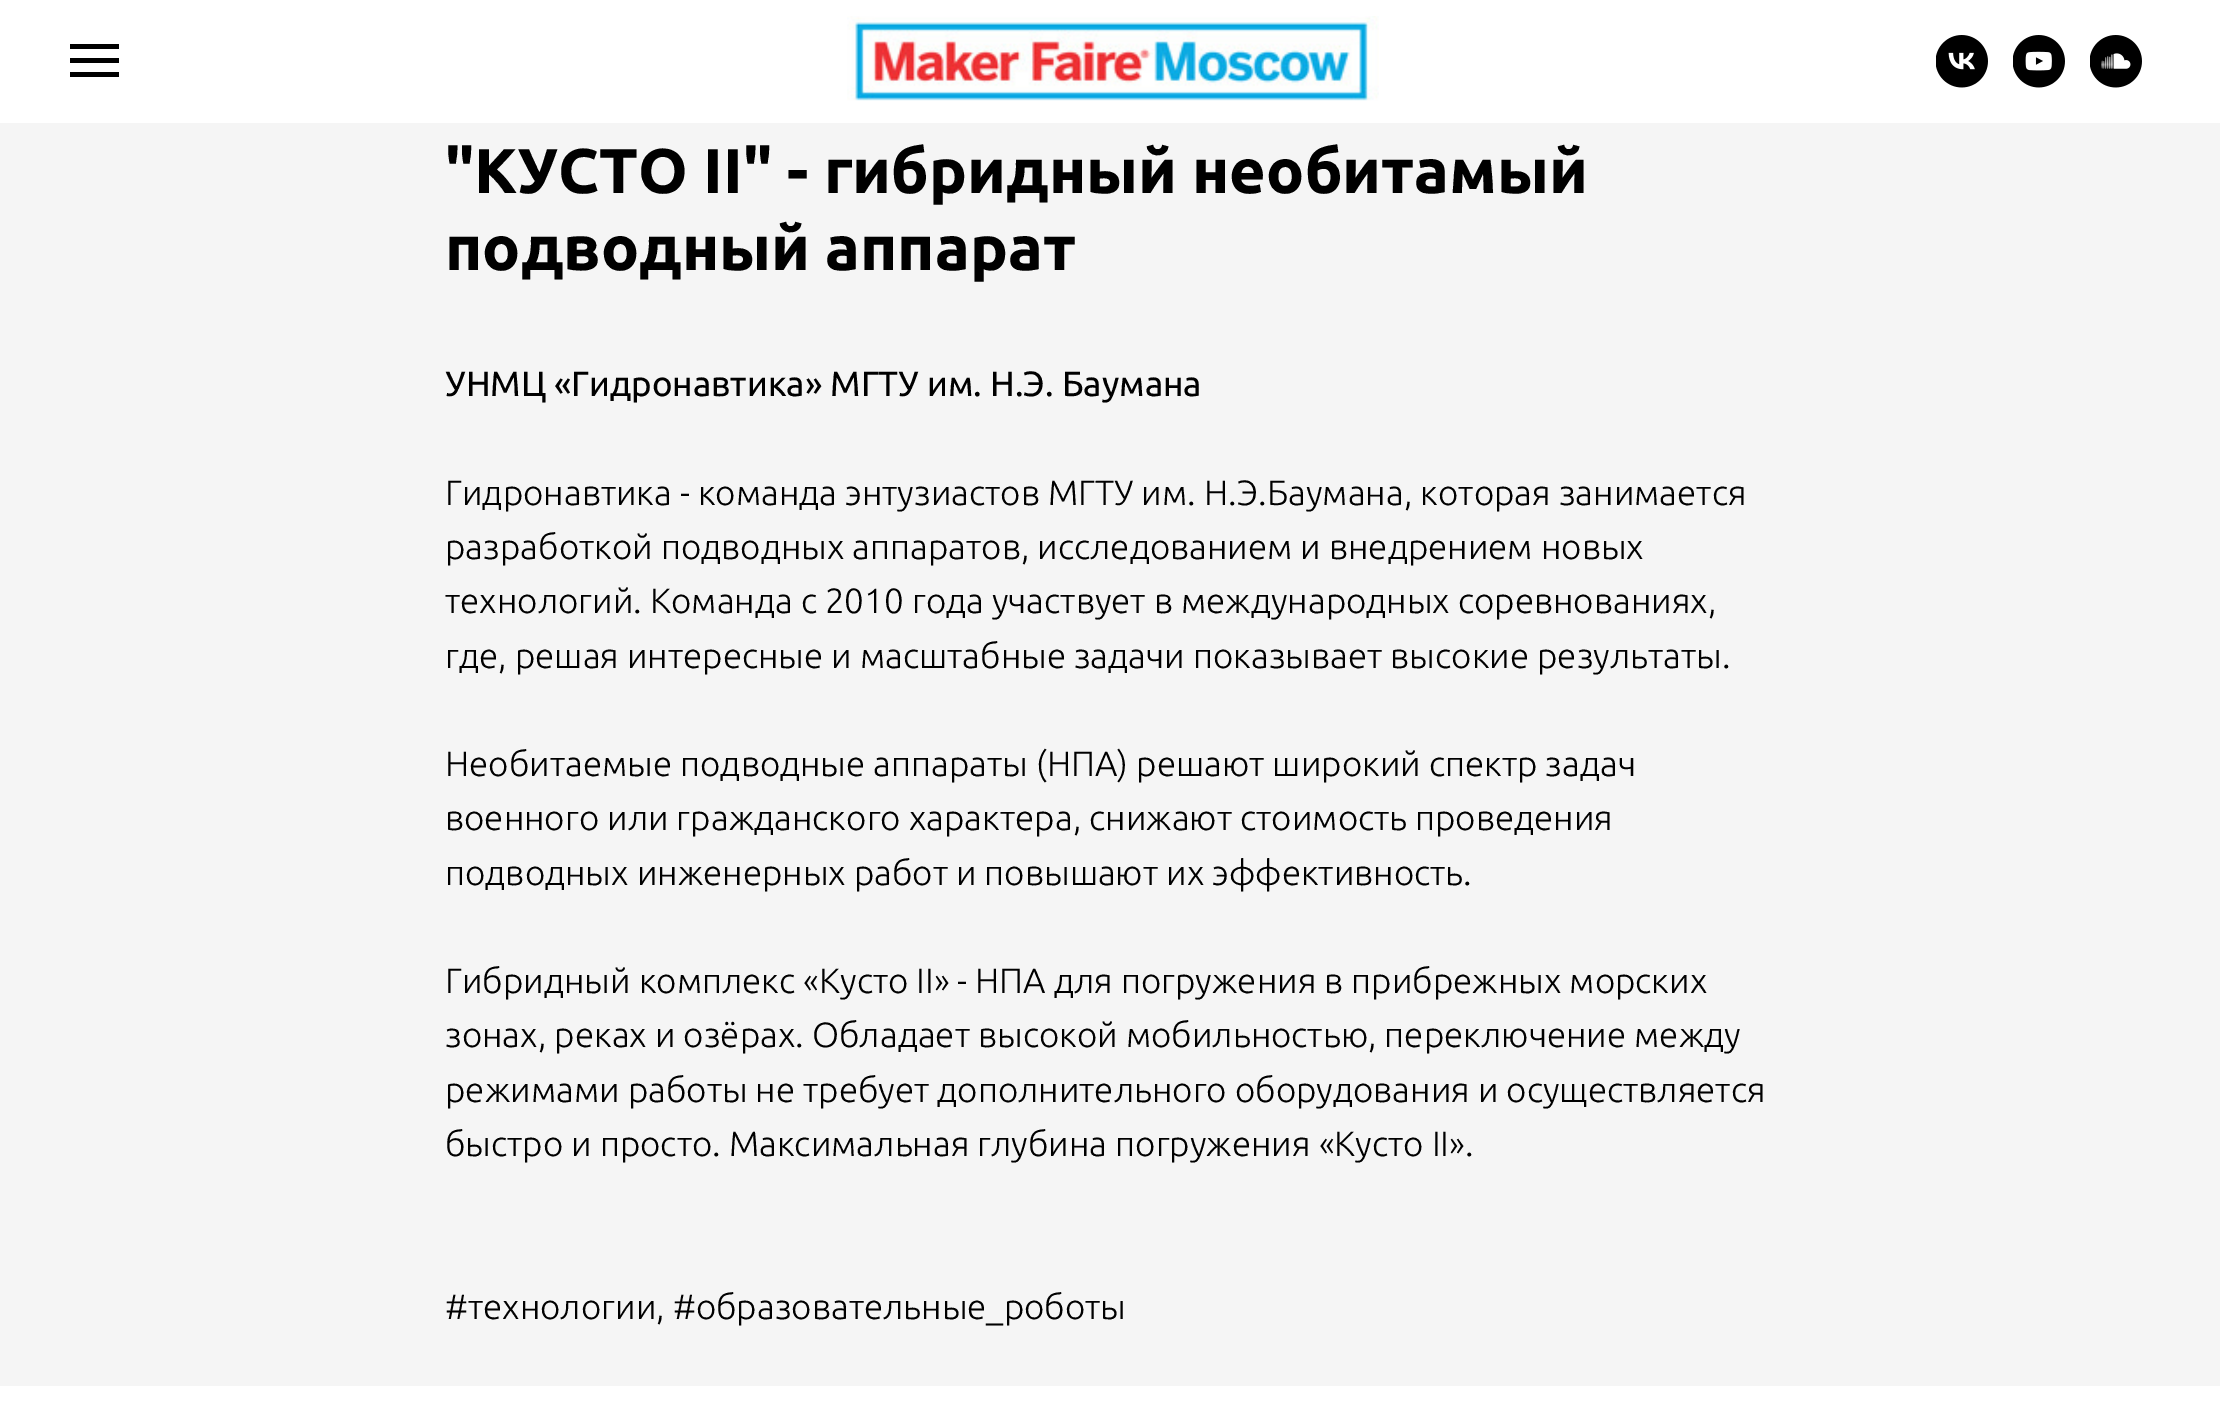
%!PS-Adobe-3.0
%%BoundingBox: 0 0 2220 1416
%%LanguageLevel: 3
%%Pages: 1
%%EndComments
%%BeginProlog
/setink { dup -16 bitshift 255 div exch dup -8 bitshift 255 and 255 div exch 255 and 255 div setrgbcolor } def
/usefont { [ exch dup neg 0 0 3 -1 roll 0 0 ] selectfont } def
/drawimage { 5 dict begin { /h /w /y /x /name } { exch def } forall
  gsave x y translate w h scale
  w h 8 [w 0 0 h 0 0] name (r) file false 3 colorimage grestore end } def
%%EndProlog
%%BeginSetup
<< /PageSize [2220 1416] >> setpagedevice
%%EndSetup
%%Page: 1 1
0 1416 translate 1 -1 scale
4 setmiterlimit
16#FFFFFF setink
0 0 2220 1416 rectfill
[
    [70 44 49 5 16#000000]
    [70 58 49 5 16#000000]
    [70 72 49 5 16#000000]
] { aload pop setink rectfill } forall
(img1.raw) 847 16 532 85 drawimage
(img2.raw) 1936 35 52 53 drawimage
(img3.raw) 2013 35 52 53 drawimage
(img4.raw) 2090 35 52 53 drawimage
16#F5F5F5 setink
0 123 2220 1263 rectfill
/Ubuntu-Bold 63 usefont
16#000000 setink
445 193 moveto ("КУСТО II" - гибридный необитамый) show
445 270 moveto (подводный аппарат) show
/Ubuntu-Regular 35 usefont
445 396 moveto (УНМЦ «Гидронавтика» МГТУ им. Н.Э. Баумана) show
/Ubuntu-Light 35 usefont
[
    [(Гидронавтика - команда энтузиастов МГТУ им. Н.Э.Баумана, которая занимается) 445 505]
    [(разработкой подводных аппаратов, исследованием и внедрением новых) 445 559]
    [(технологий. Команда с 2010 года участвует в международных соревнованиях,) 445 613]
    [(где, решая интересные и масштабные задачи показывает высокие результаты.) 445 668]
    [(Необитаемые подводные аппараты \(НПА\) решают широкий спектр задач) 445 776]
    [(военного или гражданского характера, снижают стоимость проведения) 445 830]
    [(подводных инженерных работ и повышают их эффективность.) 445 885]
    [(Гибридный комплекс «Кусто II» - НПА для погружения в прибрежных морских) 445 993]
    [(зонах, реках и озёрах. Обладает высокой мобильностью, переключение между) 445 1047]
    [(режимами работы не требует дополнительного оборудования и осуществляется) 445 1102]
    [(быстро и просто. Максимальная глубина погружения «Кусто II».) 445 1156]
    [(#технологии, #образовательные_роботы) 445 1319]
] { aload pop moveto show } forall
showpage
%%EOF
